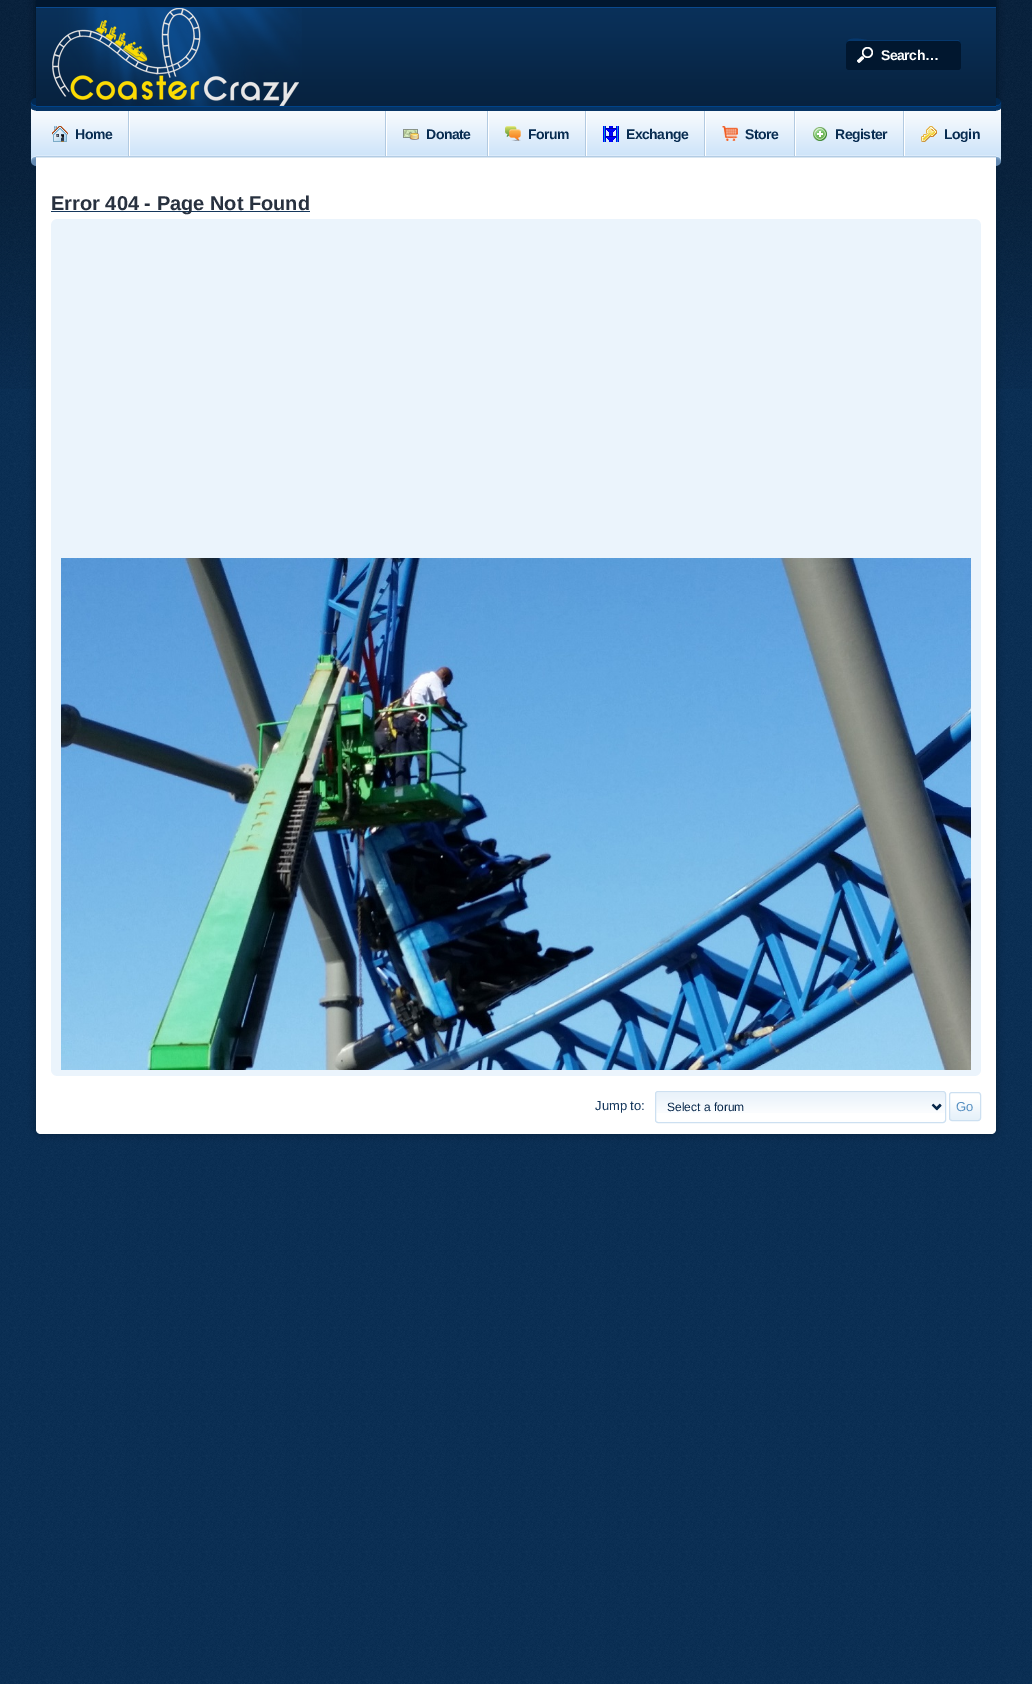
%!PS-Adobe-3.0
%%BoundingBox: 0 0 1032 1684
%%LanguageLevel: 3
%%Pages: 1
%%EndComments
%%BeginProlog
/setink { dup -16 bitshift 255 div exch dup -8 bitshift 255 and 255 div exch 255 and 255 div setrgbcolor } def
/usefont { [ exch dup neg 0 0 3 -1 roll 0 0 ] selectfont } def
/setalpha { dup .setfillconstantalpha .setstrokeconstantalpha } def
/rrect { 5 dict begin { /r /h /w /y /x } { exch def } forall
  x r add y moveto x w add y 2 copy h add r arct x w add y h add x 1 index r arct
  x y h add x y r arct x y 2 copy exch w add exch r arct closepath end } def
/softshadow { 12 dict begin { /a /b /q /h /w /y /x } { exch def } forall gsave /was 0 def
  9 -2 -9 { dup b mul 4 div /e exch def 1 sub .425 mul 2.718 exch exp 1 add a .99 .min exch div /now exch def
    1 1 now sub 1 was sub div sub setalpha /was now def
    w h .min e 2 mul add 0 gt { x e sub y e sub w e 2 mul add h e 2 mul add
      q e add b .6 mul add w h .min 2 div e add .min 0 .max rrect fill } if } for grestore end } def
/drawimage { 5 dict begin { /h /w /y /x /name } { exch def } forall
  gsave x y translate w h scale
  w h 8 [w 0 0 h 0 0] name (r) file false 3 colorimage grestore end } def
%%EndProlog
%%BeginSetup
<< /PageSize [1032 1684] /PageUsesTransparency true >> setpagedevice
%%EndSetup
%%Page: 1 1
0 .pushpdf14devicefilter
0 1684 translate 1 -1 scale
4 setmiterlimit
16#093059 setink
0 0 1032 1684 rectfill
(img1.raw) 0 0 1032 389 drawimage
(img2.raw) 0 0 1032 1684 drawimage
16#051F39 setink
36 0 960 1134 5 4 1 softshadow
16#FFFFFF setink
36 0 moveto 996 0 lineto 996 1129 lineto 996 1132 994 1134 991 1134 curveto 41 1134 lineto 38 1134 36 1132 36 1129 curveto closepath fill
16#011123 setink
36 0 960 106 0 4 1 softshadow
(img3.raw) 36 0 960 106 drawimage
(img4.raw) 52 8 250 98 drawimage
16#01172F setink
846 40 115 30 3 rrect fill
(img5.raw) 857 47 16 16 drawimage
16#06386D setink
849 41 moveto 958 41 lineto 960 41 961 42 961 44 curveto 961 42 960 40 958 40 curveto 867 40 lineto 866 40 846 35 846 44 curveto 846 42 847 41 849 41 curveto closepath fill
/LiberationSans-Bold 14 usefont
16#FFFFFF setink
881 60 moveto -0.5 0 (Search…) ashow
(img6.raw) 30 98 6 68 drawimage
(img7.raw) 36 106 960 52 drawimage
(img8.raw) 52 126 16 16 drawimage
16#082C51 setink
75 139 moveto -0.5 0 (Home) ashow
(img9.raw) 128 111 2 45 drawimage
(img9.raw) 385 111 2 45 drawimage
(img10.raw) 403 129 16 11 drawimage
426 139 moveto -0.5 0 (Donate) ashow
(img9.raw) 487 111 2 45 drawimage
(img11.raw) 505 126 16 15 drawimage
528 139 moveto -0.5 0 (Forum) ashow
(img9.raw) 585 111 2 45 drawimage
(img12.raw) 603 126 16 16 drawimage
626 139 moveto -0.5 0 (Exchange) ashow
(img9.raw) 704 111 2 45 drawimage
(img13.raw) 722 126 16 15 drawimage
745 139 moveto -0.5 0 (Store) ashow
(img9.raw) 794 111 2 45 drawimage
(img14.raw) 813 127 14 14 drawimage
835 139 moveto -0.5 0 (Register) ashow
(img9.raw) 903 111 2 45 drawimage
(img15.raw) 921 126 16 16 drawimage
944 139 moveto -0.5 0 (Login) ashow
(img16.raw) 996 98 6 68 drawimage
16#15375C setink
51 211 259 1 rectfill
/LiberationSans-Bold 20 usefont
16#28313F setink
51 210 moveto (Error 404 - Page Not Found) show
16#EBF4FC setink
51 219 930 857 rectfill
(img17.raw) 51 219 5 5 drawimage
(img18.raw) 976 219 5 5 drawimage
(img19.raw) 61 558 910 512 drawimage
(img20.raw) 51 1071 5 5 drawimage
(img21.raw) 976 1071 5 5 drawimage
/LiberationSans-Regular 13 usefont
16#15375C setink
595 1110 moveto (Jump to:) show
(img22.raw) 655 1092 291 21 drawimage
16#CDE0F1 setink
655.5 1091.5 290 31 2.5 rrect stroke
16#08284B setink
2 setlinewidth
932.5 1104.5 moveto 936.5 1108.5 lineto 940.5 1104.5 lineto stroke
/LiberationSans-Regular 12 usefont
667 1111 moveto (Select a forum) show
(img23.raw) 949 1100 32 20 drawimage
16#CDE0F1 setink
1 setlinewidth
949.5 1092.5 31 28 2.5 rrect stroke
/LiberationSans-Regular 13 usefont
16#5790C2 setink
956 1111 moveto (Go) show
.poppdf14devicefilter showpage
%%EOF
